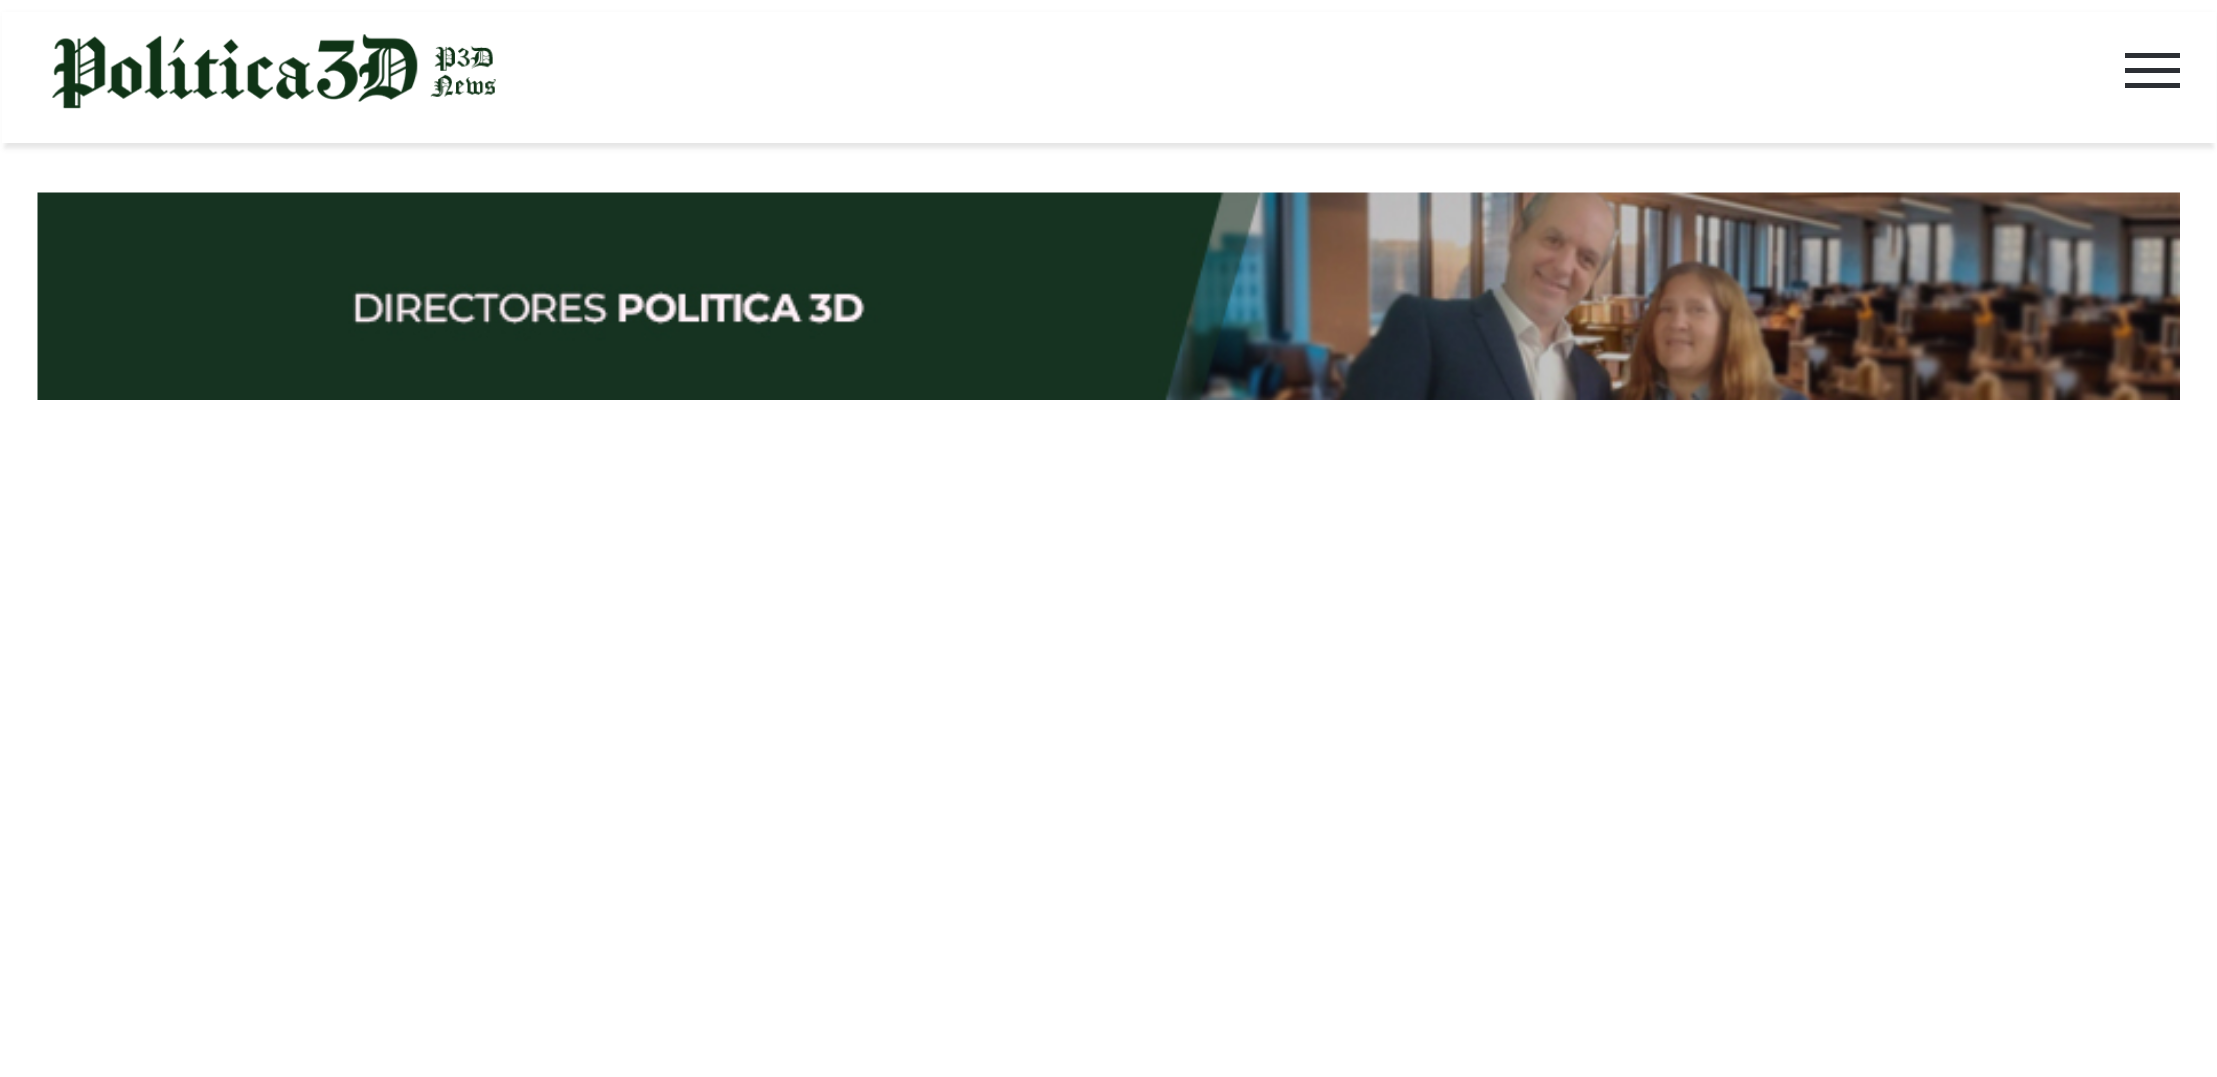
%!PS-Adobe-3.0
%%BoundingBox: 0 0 2217 1077
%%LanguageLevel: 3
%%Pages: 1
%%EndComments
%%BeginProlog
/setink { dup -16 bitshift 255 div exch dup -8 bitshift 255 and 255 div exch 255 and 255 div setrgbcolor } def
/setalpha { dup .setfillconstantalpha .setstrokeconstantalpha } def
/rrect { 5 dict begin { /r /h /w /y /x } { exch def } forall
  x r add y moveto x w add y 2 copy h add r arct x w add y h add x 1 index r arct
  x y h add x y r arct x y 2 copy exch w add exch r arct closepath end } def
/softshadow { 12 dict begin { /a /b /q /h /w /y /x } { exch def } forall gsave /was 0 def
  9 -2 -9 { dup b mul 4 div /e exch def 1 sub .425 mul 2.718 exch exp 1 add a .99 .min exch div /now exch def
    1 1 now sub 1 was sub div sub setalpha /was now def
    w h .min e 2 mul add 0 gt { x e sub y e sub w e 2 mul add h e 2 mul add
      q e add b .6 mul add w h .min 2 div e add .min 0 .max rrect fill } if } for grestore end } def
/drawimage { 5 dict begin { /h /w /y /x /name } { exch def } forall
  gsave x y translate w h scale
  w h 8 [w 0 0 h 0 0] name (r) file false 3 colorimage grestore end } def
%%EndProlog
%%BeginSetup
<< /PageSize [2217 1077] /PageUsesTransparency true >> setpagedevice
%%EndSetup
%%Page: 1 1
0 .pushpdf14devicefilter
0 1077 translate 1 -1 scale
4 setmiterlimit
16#FFFFFF setink
0 0 2217 1077 rectfill
16#000000 setink
5 15 2208 133 0 2.5 0.1 softshadow
16#FFFFFF setink
2 12 2214 131 rectfill
(img1.raw) 52 34 444 75 drawimage
[
    [2125 68 55 5 16#2C2F34]
    [2125 53 55 5 16#2C2F34]
    [2125 83 55 5 16#2C2F34]
] { aload pop setink rectfill } forall
(img2.raw) 37 192 2143 208 drawimage
.poppdf14devicefilter showpage
%%EOF
